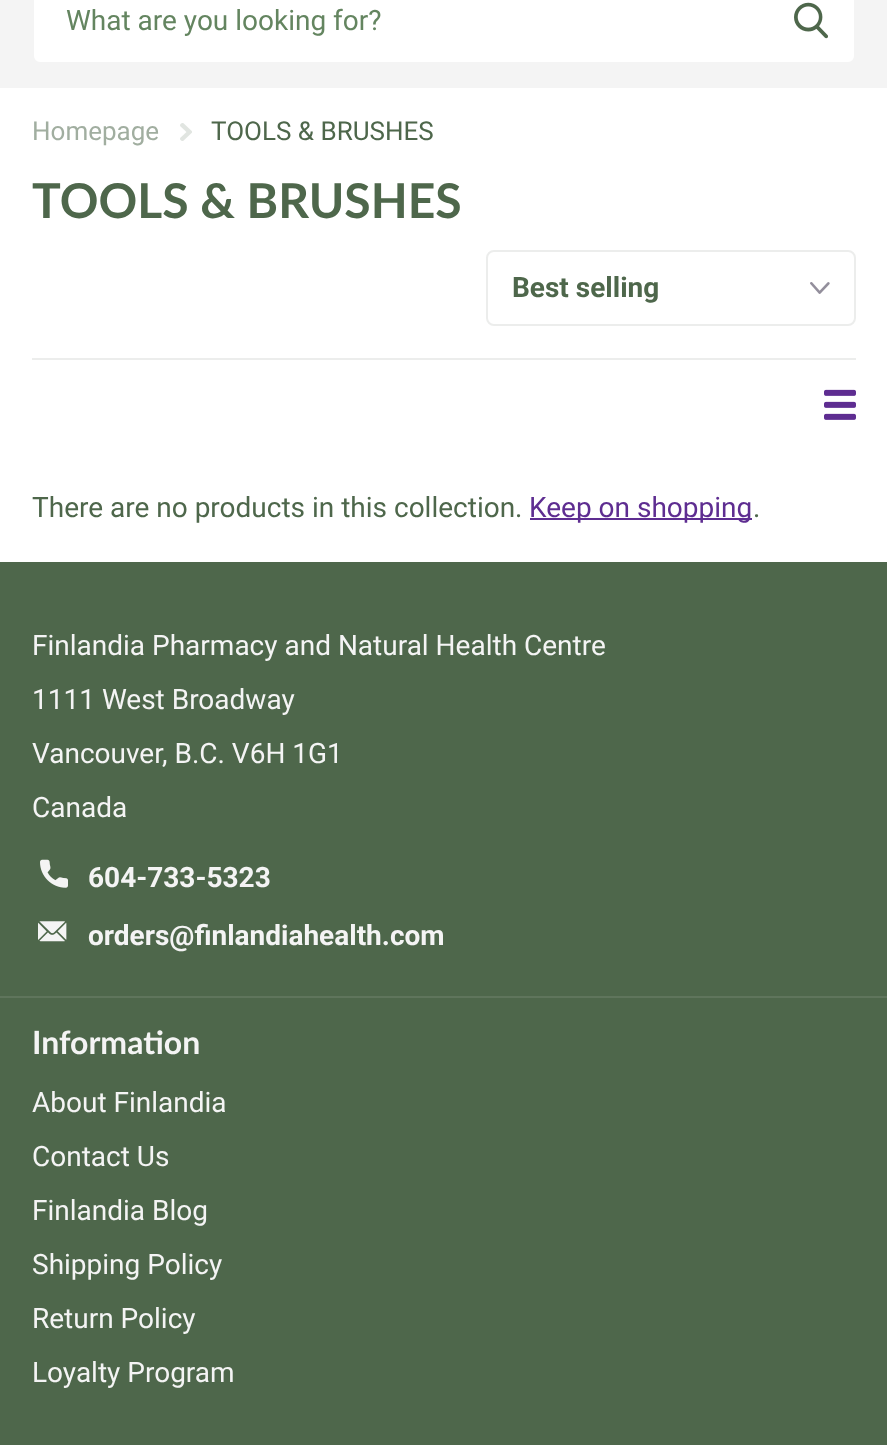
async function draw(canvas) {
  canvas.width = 887
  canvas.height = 1445
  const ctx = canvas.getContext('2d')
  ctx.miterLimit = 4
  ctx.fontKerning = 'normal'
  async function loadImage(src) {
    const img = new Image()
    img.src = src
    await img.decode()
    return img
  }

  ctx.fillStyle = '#fff'
  ctx.fillRect(0, 0, 887, 1445)
  ctx.fillStyle = '#f4f4f4'
  ctx.fillRect(0, 0, 887, 88)
  ctx.fillStyle = '#fff'
  ctx.beginPath()
  ctx.roundRect(33, -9, 822, 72, 7)
  ctx.fill()
  ctx.strokeStyle = '#f4f4f4'
  ctx.lineWidth = 2
  ctx.stroke()
  ctx.font = '28px Roboto'
  ctx.fillStyle = '#648560'
  ctx.fillText('What are you looking for?', 66, 30)
  ctx.drawImage(await loadImage('image0.png'), 794, 2, 34, 37)
  ctx.font = '26px Roboto'
  ctx.fillStyle = '#a1aea0'
  ctx.fillText('Homepage', 32, 140)
  ctx.drawImage(await loadImage('image1.png'), 180, 123, 12, 18)
  ctx.fillStyle = '#4e674b'
  ctx.fillText('TOOLS & BRUSHES', 211, 140)
  ctx.font = 'bold 48px Lato'
  ctx.fillText('TOOLS & BRUSHES', 32, 218)
  ctx.drawImage(await loadImage('image2.png'), 810, 282, 20, 12)
  ctx.beginPath()
  ctx.roundRect(487, 251, 368, 74, 7)
  ctx.strokeStyle = '#ecedec'
  ctx.stroke()
  ctx.font = 'bold 28px Roboto'
  ctx.fillText('Best selling', 512, 297)
  ctx.fillStyle = '#ecedec'
  ctx.fillRect(32, 358, 824, 2)
  ctx.drawImage(await loadImage('image3.png'), 824, 389, 32, 31)
  ctx.font = '28px Roboto'
  ctx.fillStyle = '#4e674b'
  ctx.fillText('There are no products in this collection.', 32, 517)
  ctx.fillStyle = '#5e2d91'
  ctx.fillRect(530, 518, 222, 2)
  ctx.fillText('Keep on shopping', 529, 517)
  ctx.fillStyle = '#4e674b'
  ctx.fillText('.', 753, 517)
  ctx.fillRect(0, 562, 887, 883)
  ctx.fillStyle = '#f4f4f4'
  ctx.fillText('Finlandia Pharmacy and Natural Health Centre', 32, 655)
  ctx.fillText('1111 West Broadway', 32, 709)
  ctx.fillText('Vancouver, B.C. V6H 1G1', 32, 763)
  ctx.fillText('Canada', 32, 817)
  ctx.drawImage(await loadImage('image4.png'), 40, 859, 28, 29)
  ctx.font = 'bold 28px Roboto'
  ctx.fillText('604-733-5323', 88, 887)
  ctx.drawImage(await loadImage('image5.png'), 38, 921, 29, 21)
  ctx.fillText('orders@finlandiahealth.com', 88, 945)
  ctx.fillStyle = '#5f755c'
  ctx.fillRect(0, 996, 887, 2)
  ctx.font = 'bold 32px Lato'
  ctx.fillStyle = '#f4f4f4'
  ctx.fillText('Information', 32, 1054)
  ctx.font = '28px Roboto'
  ctx.fillText('About Finlandia', 32, 1112)
  ctx.fillText('Contact Us', 32, 1166)
  ctx.fillText('Finlandia Blog', 32, 1220)
  ctx.fillText('Shipping Policy', 32, 1274)
  ctx.fillText('Return Policy', 32, 1328)
  ctx.fillText('Loyalty Program', 32, 1382)
}

draw(document.querySelector('canvas'))
